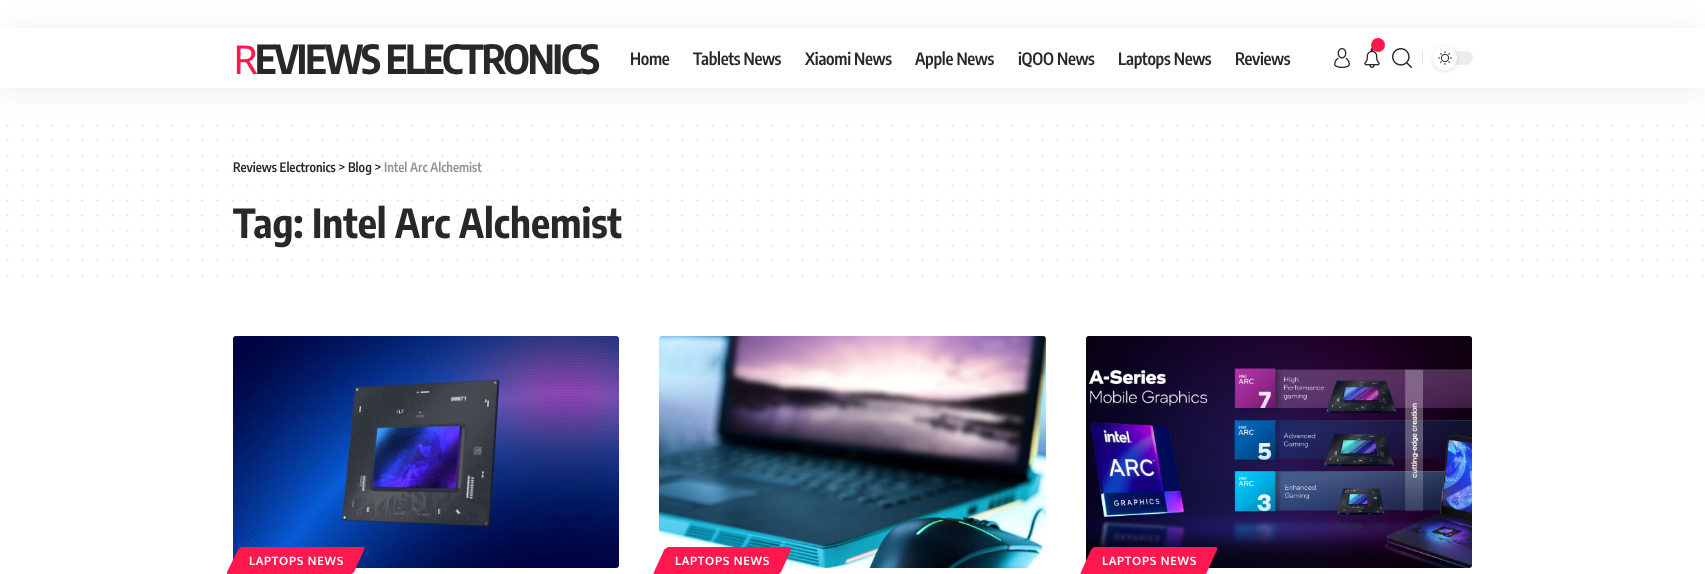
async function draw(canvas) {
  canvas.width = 1705
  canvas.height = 574
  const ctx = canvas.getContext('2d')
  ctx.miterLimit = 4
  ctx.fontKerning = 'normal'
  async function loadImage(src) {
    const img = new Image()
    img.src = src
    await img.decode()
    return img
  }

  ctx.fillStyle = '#fff'
  ctx.fillRect(0, 0, 1705, 574)
  ctx.beginPath()
  ctx.moveTo(7.5, 125.5)
  ctx.lineTo(1702.7, 125.5)
  ctx.strokeStyle = '#dfdfdf'
  ctx.lineWidth = 2
  ctx.lineCap = 'round'
  ctx.setLineDash([0, 15])
  ctx.stroke()
  ctx.save()
  ctx.beginPath()
  ctx.moveTo(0, 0)
  ctx.lineTo(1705, 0)
  ctx.lineTo(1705, 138)
  ctx.lineTo(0, 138)
  ctx.closePath()
  ctx.moveTo(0, 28)
  ctx.lineTo(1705, 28)
  ctx.lineTo(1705, 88)
  ctx.lineTo(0, 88)
  ctx.closePath()
  ctx.clip('evenodd')
  ctx.fillStyle = '#00000012'
  ctx.filter = 'blur(15px)'
  ctx.beginPath()
  ctx.rect(0, 32, 1705, 60)
  ctx.fill()
  ctx.filter = 'none'
  ctx.restore()
  ctx.letterSpacing = '-2px'
  ctx.font = '40px Noto Sans'
  ctx.fillStyle = '#ff184e'
  ctx.fillText('R', 233, 74)
  ctx.font = 'bold 40px Encode Sans Condensed'
  ctx.fillStyle = '#282828'
  ctx.fillText('EVIEWS ELECTRONICS', 255, 74)
  ctx.letterSpacing = '-0.3px'
  ctx.font = '600 17px Encode Sans Condensed'
  ctx.fillText('Home', 630, 65)
  ctx.fillText('Tablets News', 693, 65)
  ctx.fillText('Xiaomi News', 805, 65)
  ctx.fillText('Apple News', 915, 65)
  ctx.fillText('iQOO News', 1018, 65)
  ctx.fillText('Laptops News', 1118, 65)
  ctx.fillText('Reviews', 1235, 65)
  ctx.drawImage(await loadImage('image0.png'), 1334, 48, 16, 20)
  ctx.drawImage(await loadImage('image1.png'), 1364, 48, 16, 20)
  ctx.fillStyle = '#ff184e'
  ctx.beginPath()
  ctx.arc(1378, 45, 7, 0, 2 * Math.PI)
  ctx.fill()
  ctx.drawImage(await loadImage('image2.png'), 1392, 48, 20, 20)
  ctx.fillStyle = '#e4e4e4'
  ctx.fillRect(1422, 51, 1, 14)
  ctx.fillStyle = '#ededed'
  ctx.beginPath()
  ctx.roundRect(1433, 51, 40, 14, 7)
  ctx.fill()
  ctx.fillStyle = '#0000001f'
  ctx.filter = 'blur(2px)'
  ctx.beginPath()
  ctx.roundRect(1433, 47, 24, 24, 12)
  ctx.fill()
  ctx.filter = 'none'
  ctx.fillStyle = '#fff'
  ctx.beginPath()
  ctx.arc(1445, 58, 12, 0, 2 * Math.PI)
  ctx.fill()
  ctx.drawImage(await loadImage('image3.png'), 1438, 51, 14, 14)
  ctx.beginPath()
  ctx.moveTo(7.5, 140.5)
  ctx.lineTo(1702.7, 140.5)
  ctx.stroke()
  ctx.beginPath()
  ctx.moveTo(7.5, 155.5)
  ctx.lineTo(1702.7, 155.5)
  ctx.stroke()
  ctx.letterSpacing = '0px'
  ctx.font = '600 13px Encode Sans Condensed'
  ctx.fillStyle = '#282828'
  ctx.fillText('Reviews Electronics > Blog >', 233, 172)
  ctx.beginPath()
  ctx.moveTo(7.5, 170.5)
  ctx.lineTo(1702.7, 170.5)
  ctx.strokeStyle = '#28282826'
  ctx.stroke()
  ctx.beginPath()
  ctx.moveTo(7.5, 185.5)
  ctx.lineTo(1702.7, 185.5)
  ctx.strokeStyle = '#dfdfdf'
  ctx.stroke()
  ctx.beginPath()
  ctx.moveTo(7.5, 200.5)
  ctx.lineTo(1702.7, 200.5)
  ctx.stroke()
  ctx.font = 'bold 40px Encode Sans Condensed'
  ctx.fillText('Tag: Intel Arc Alchemist', 233, 238)
  ctx.beginPath()
  ctx.moveTo(7.5, 215.5)
  ctx.lineTo(1702.7, 215.5)
  ctx.strokeStyle = '#28282826'
  ctx.stroke()
  ctx.beginPath()
  ctx.moveTo(7.5, 230.5)
  ctx.lineTo(1702.7, 230.5)
  ctx.stroke()
  ctx.beginPath()
  ctx.moveTo(7.5, 245.5)
  ctx.lineTo(1702.7, 245.5)
  ctx.stroke()
  ctx.beginPath()
  ctx.moveTo(7.5, 260.5)
  ctx.lineTo(1702.7, 260.5)
  ctx.strokeStyle = '#dfdfdf'
  ctx.stroke()
  ctx.beginPath()
  ctx.moveTo(7.5, 275.5)
  ctx.lineTo(1702.7, 275.5)
  ctx.stroke()
  ctx.font = '600 13px Encode Sans Condensed'
  ctx.fillStyle = '#939393'
  ctx.fillText('Intel Arc Alchemist', 384, 172)
  ctx.drawImage(await loadImage('image4.png'), 233, 336, 386, 232)
  ctx.fillStyle = '#ff184e'
  ctx.beginPath()
  ctx.moveTo(242, 547)
  ctx.lineTo(363, 547)
  ctx.bezierCurveTo(364, 547, 365, 549, 364, 550)
  ctx.lineTo(354, 572)
  ctx.bezierCurveTo(353, 573, 351, 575, 350, 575)
  ctx.lineTo(229, 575)
  ctx.bezierCurveTo(227, 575, 227, 573, 227, 572)
  ctx.lineTo(238, 550)
  ctx.bezierCurveTo(238, 549, 240, 547, 242, 547)
  ctx.closePath()
  ctx.fill()
  ctx.letterSpacing = '0.75px'
  ctx.font = 'bold 11.5px Oxygen'
  ctx.fillStyle = '#fff'
  ctx.fillText('LAPTOPS NEWS', 249, 565)
  ctx.drawImage(await loadImage('image5.png'), 659, 336, 387, 232)
  ctx.fillStyle = '#ff184e'
  ctx.beginPath()
  ctx.moveTo(669, 547)
  ctx.lineTo(789, 547)
  ctx.bezierCurveTo(791, 547, 792, 549, 791, 550)
  ctx.lineTo(781, 572)
  ctx.bezierCurveTo(780, 573, 778, 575, 776, 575)
  ctx.lineTo(656, 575)
  ctx.bezierCurveTo(654, 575, 653, 573, 654, 572)
  ctx.lineTo(664, 550)
  ctx.bezierCurveTo(665, 549, 667, 547, 669, 547)
  ctx.closePath()
  ctx.fill()
  ctx.fillStyle = '#fff'
  ctx.fillText('LAPTOPS NEWS', 675, 565)
  ctx.drawImage(await loadImage('image6.png'), 1086, 336, 386, 232)
  ctx.fillStyle = '#ff184e'
  ctx.beginPath()
  ctx.moveTo(1095, 547)
  ctx.lineTo(1216, 547)
  ctx.bezierCurveTo(1217, 547, 1218, 549, 1217, 550)
  ctx.lineTo(1207, 572)
  ctx.bezierCurveTo(1207, 573, 1205, 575, 1203, 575)
  ctx.lineTo(1082, 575)
  ctx.bezierCurveTo(1081, 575, 1080, 573, 1081, 572)
  ctx.lineTo(1091, 550)
  ctx.bezierCurveTo(1092, 549, 1093, 547, 1095, 547)
  ctx.closePath()
  ctx.fill()
  ctx.fillStyle = '#fff'
  ctx.fillText('LAPTOPS NEWS', 1102, 565)
}

draw(document.querySelector('canvas'))
